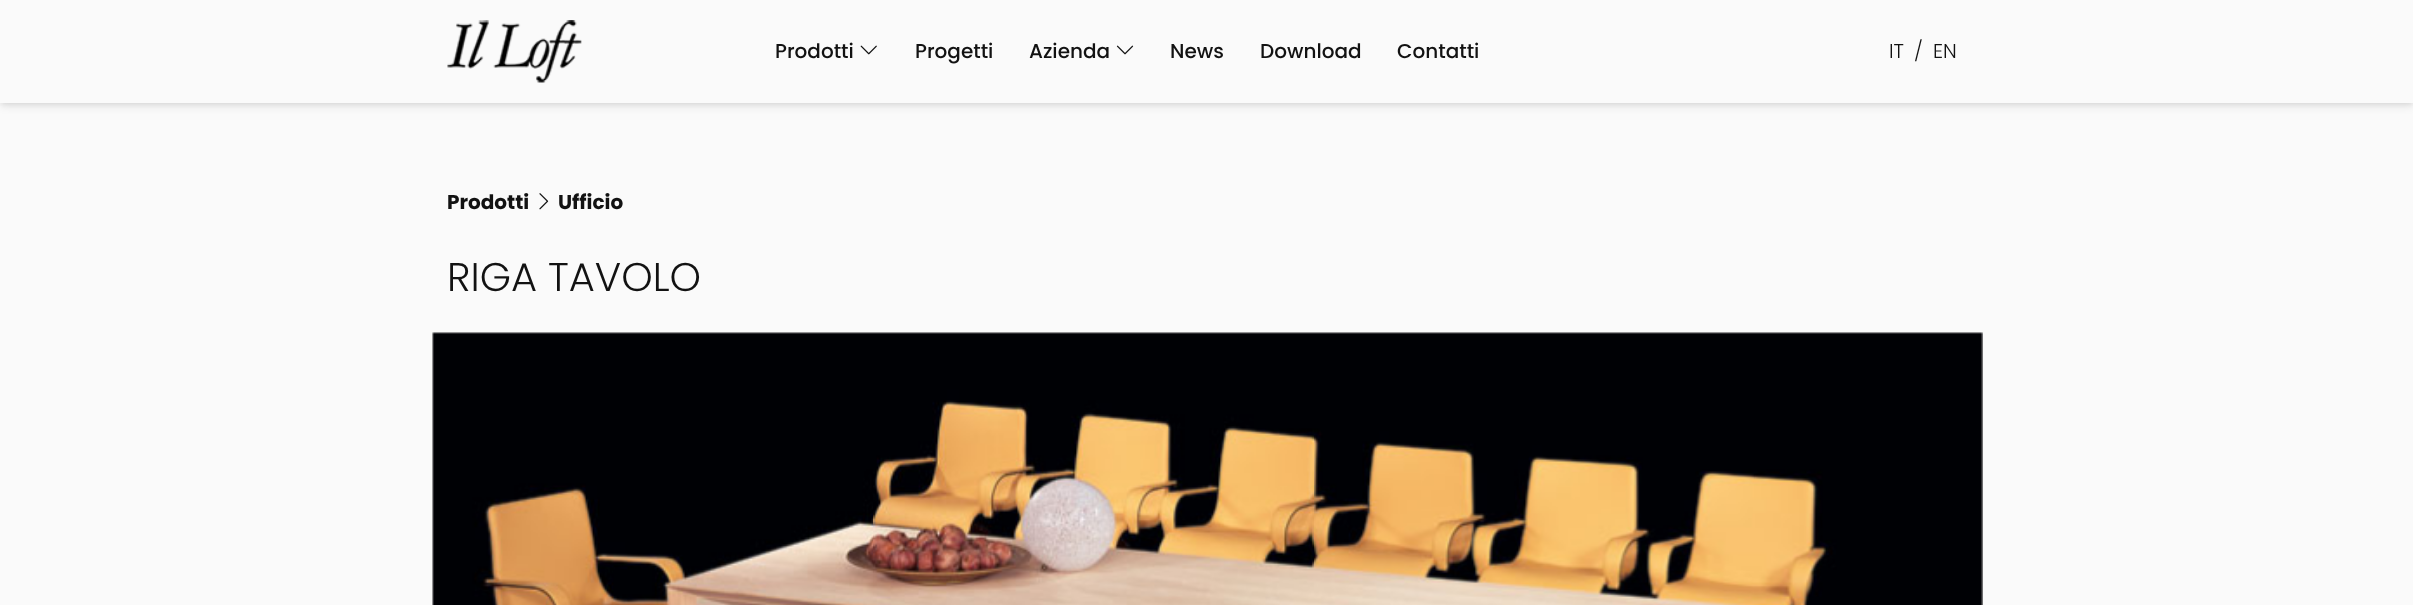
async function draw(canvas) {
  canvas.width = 2413
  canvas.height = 605
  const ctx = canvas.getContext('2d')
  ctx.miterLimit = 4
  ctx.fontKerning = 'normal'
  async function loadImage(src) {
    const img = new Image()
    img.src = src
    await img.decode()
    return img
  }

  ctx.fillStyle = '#fafafa'
  ctx.fillRect(0, 0, 2413, 605)
  ctx.fillStyle = '#0000000f'
  ctx.filter = 'blur(2.5px)'
  ctx.beginPath()
  ctx.rect(1, 4, 2412, 100)
  ctx.fill()
  ctx.filter = 'none'
  ctx.fillStyle = '#0000001a'
  ctx.filter = 'blur(4px)'
  ctx.beginPath()
  ctx.rect(1, 6, 2412, 100)
  ctx.fill()
  ctx.filter = 'none'
  ctx.fillStyle = '#fafafa'
  ctx.fillRect(0, 0, 2413, 103)
  ctx.drawImage(await loadImage('image0.png'), 447, 20, 135, 63)
  ctx.font = '500 20px Poppins'
  ctx.fillStyle = '#121212'
  ctx.fillText('Prodotti', 775, 58)
  ctx.drawImage(await loadImage('image1.png'), 860, 45, 17, 10)
  ctx.fillText('Progetti', 915, 58)
  ctx.fillText('Azienda', 1029, 58)
  ctx.drawImage(await loadImage('image2.png'), 1116, 45, 18, 10)
  ctx.fillText('News', 1170, 58)
  ctx.fillText('Download', 1260, 58)
  ctx.fillText('Contatti', 1397, 58)
  ctx.font = '300 20px Poppins'
  ctx.fillText('IT', 1889, 58)
  ctx.fillText('/', 1914, 58)
  ctx.fillText('EN', 1933, 58)
  ctx.font = 'bold 20px Poppins'
  ctx.fillText('Prodotti', 447, 209)
  ctx.drawImage(await loadImage('image3.png'), 539, 193, 10, 17)
  ctx.fillText('Ufficio', 558, 209)
  ctx.font = '300 40px Poppins'
  ctx.fillText('RIGA TAVOLO', 447, 291)
  ctx.drawImage(await loadImage('image4.png'), 432, 332, 1551, 273)
}

draw(document.querySelector('canvas'))
